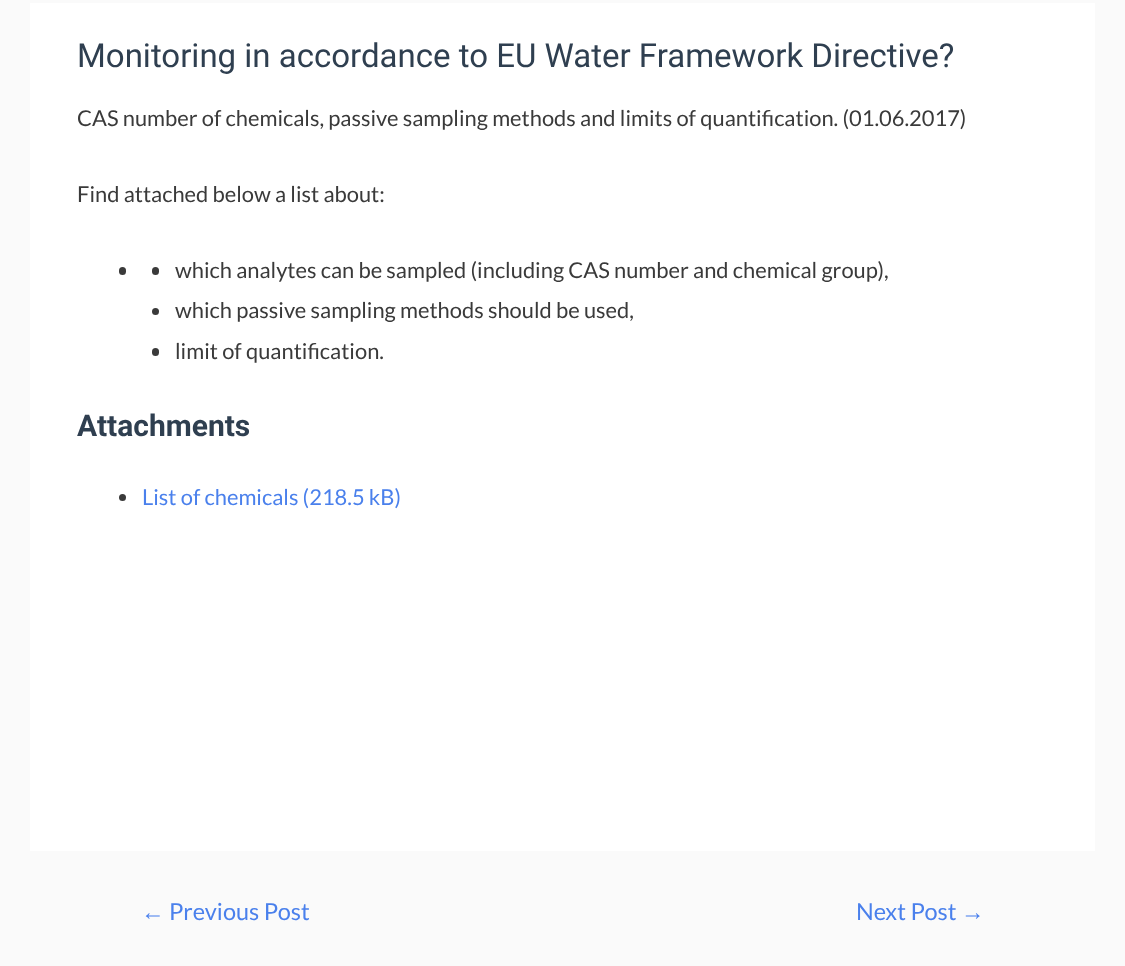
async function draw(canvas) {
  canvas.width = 1125
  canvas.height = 966
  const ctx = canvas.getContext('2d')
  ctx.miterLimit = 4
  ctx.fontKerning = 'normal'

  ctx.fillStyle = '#fafafa'
  ctx.fillRect(0, 0, 1125, 966)
  ctx.fillStyle = '#fff'
  ctx.fillRect(30, 3, 1065, 848)
  ctx.font = '33px Roboto'
  ctx.fillStyle = '#2f3f50'
  ctx.fillText('Monitoring in accordance to EU Water Framework Directive?', 77, 67)
  ctx.font = '21.9px Lato'
  ctx.fillStyle = '#3a3a3a'
  ctx.fillText('CAS number of chemicals, passive sampling methods and limits of quantification. (01.06.2017)', 77, 126)
  ctx.fillText('Find attached below a list about:', 77, 202)
  ctx.beginPath()
  ctx.roundRect(119, 267, 7, 8, 3.5)
  ctx.fill()
  ctx.beginPath()
  ctx.roundRect(152, 267, 7, 8, 3.5)
  ctx.fill()
  ctx.fillText('which analytes can be sampled (including CAS number and chemical group),', 175, 278)
  ctx.beginPath()
  ctx.arc(155.5, 311.5, 3.5, 0, 2 * Math.PI)
  ctx.fill()
  ctx.fillText('which passive sampling methods should be used,', 175, 318)
  ctx.beginPath()
  ctx.roundRect(152, 348, 7, 8, 3.5)
  ctx.fill()
  ctx.fillText('limit of quantification.', 175, 359)
  ctx.font = 'bold 30px Roboto'
  ctx.fillStyle = '#2f3f50'
  ctx.fillText('Attachments', 77, 436)
  ctx.fillStyle = '#3a3a3a'
  ctx.beginPath()
  ctx.arc(122.5, 497.5, 3.5, 0, 2 * Math.PI)
  ctx.fill()
  ctx.font = '21.9px Lato'
  ctx.fillStyle = '#4a80ec'
  ctx.fillText('List of chemicals (218.5 kB)', 142, 505)
  ctx.font = '23.5px Liberation Sans'
  ctx.fillText('←', 141, 920)
  ctx.font = '23.5px Lato'
  ctx.fillText('Previous Post', 169, 920)
  ctx.fillText('Next Post', 856, 920)
  ctx.font = '23.5px Liberation Sans'
  ctx.fillText('→', 961, 920)
}

draw(document.querySelector('canvas'))
